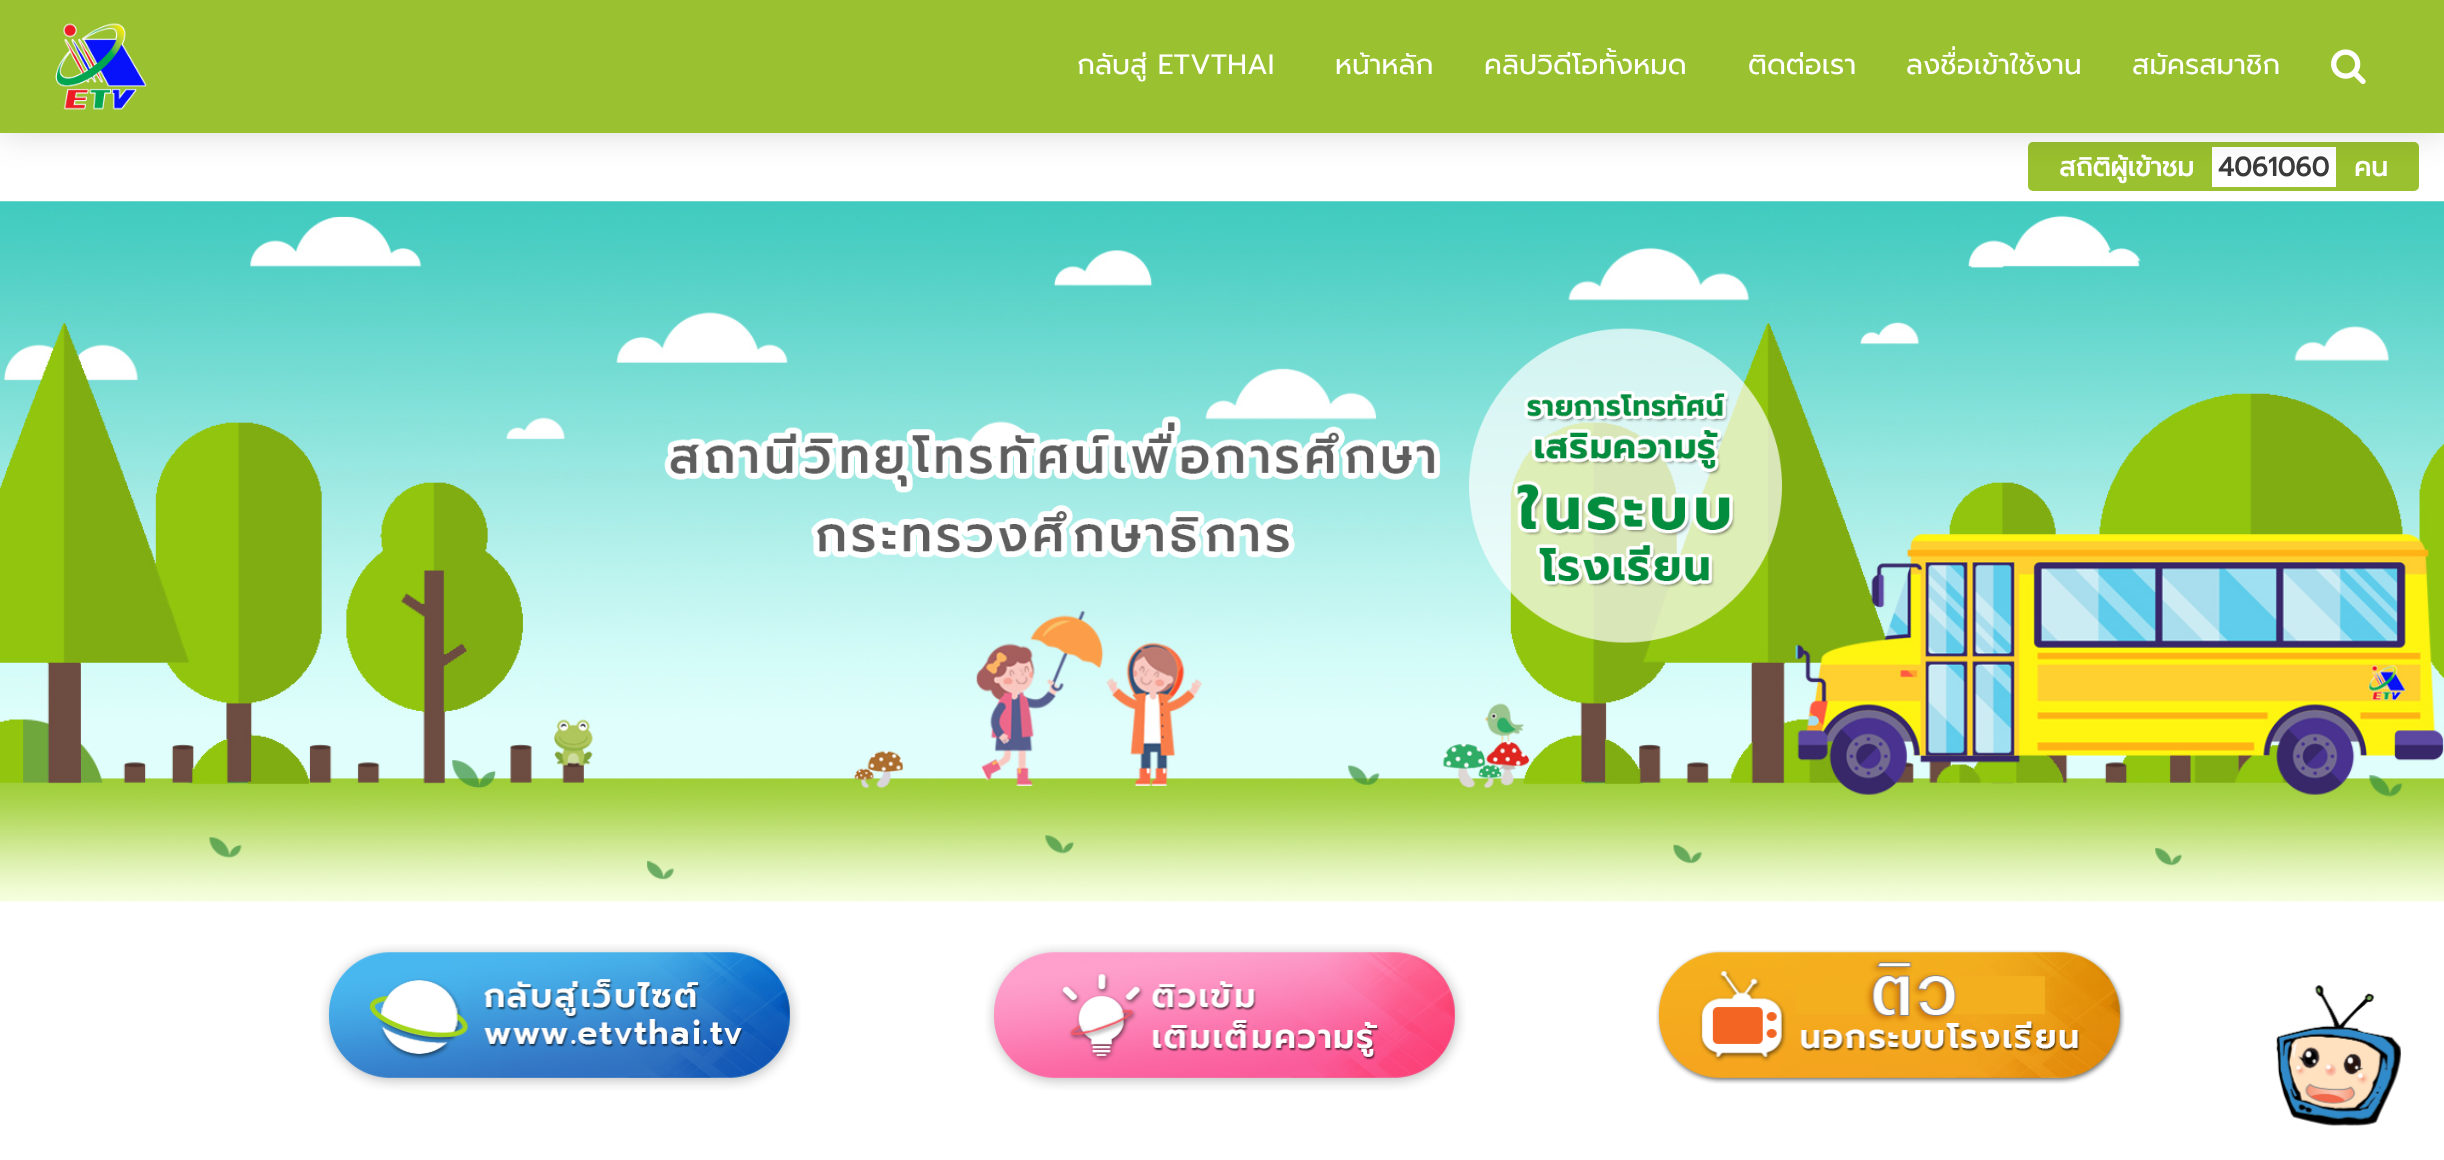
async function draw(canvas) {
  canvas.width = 2444
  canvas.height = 1160
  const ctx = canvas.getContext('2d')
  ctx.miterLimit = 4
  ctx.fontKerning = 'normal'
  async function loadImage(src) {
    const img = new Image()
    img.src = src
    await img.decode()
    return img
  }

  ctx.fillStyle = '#fff'
  ctx.fillRect(0, 0, 2444, 1160)
  ctx.fillStyle = '#9ac12f'
  ctx.beginPath()
  ctx.roundRect(2028, 142, 391, 49, 5)
  ctx.fill()
  ctx.fillStyle = '#fff'
  ctx.fillRect(2212, 147, 124, 40)
  ctx.fillStyle = '#00000026'
  ctx.filter = 'blur(17.5px)'
  ctx.beginPath()
  ctx.rect(0, 0, 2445, 133)
  ctx.fill()
  ctx.filter = 'none'
  ctx.fillStyle = '#9ac12f'
  ctx.fillRect(0, 0, 2444, 133)
  ctx.drawImage(await loadImage('image0.png'), 55, 23, 92, 87)
  ctx.font = '28px Prompt'
  ctx.fillStyle = '#fff'
  ctx.fillText('กลับสู่ ETVTHAI', 1077, 74)
  ctx.fillText('หน้าหลัก', 1335, 74)
  ctx.fillText('คลิปวิดีโอทั้งหมด', 1484, 74)
  ctx.fillText('ติดต่อเรา', 1748, 74)
  ctx.fillText('ลงชื่อเข้าใช้งาน', 1906, 74)
  ctx.fillText('สมัครสมาชิก', 2132, 74)
  ctx.drawImage(await loadImage('image1.png'), 2331, 49, 35, 35)
  ctx.font = 'bold 26.5px Prompt'
  ctx.fillText('สถิติผู้เข้าชม', 2059, 176)
  ctx.fillStyle = '#3a3a3a'
  ctx.fillText('4061060', 2218, 176)
  ctx.fillStyle = '#fff'
  ctx.fillText('คน', 2354, 176)
  ctx.drawImage(await loadImage('image2.png'), 0, 201, 2444, 701)
  ctx.drawImage(await loadImage('image3.png'), 664, 328, 1118, 315)
  ctx.drawImage(await loadImage('image4.png'), 320, 944, 481, 146)
  ctx.drawImage(await loadImage('image5.png'), 985, 944, 481, 146)
  ctx.drawImage(await loadImage('image6.png'), 1656, 950, 469, 134)
  ctx.drawImage(await loadImage('image7.png'), 2276, 985, 125, 141)
}

draw(document.querySelector('canvas'))
